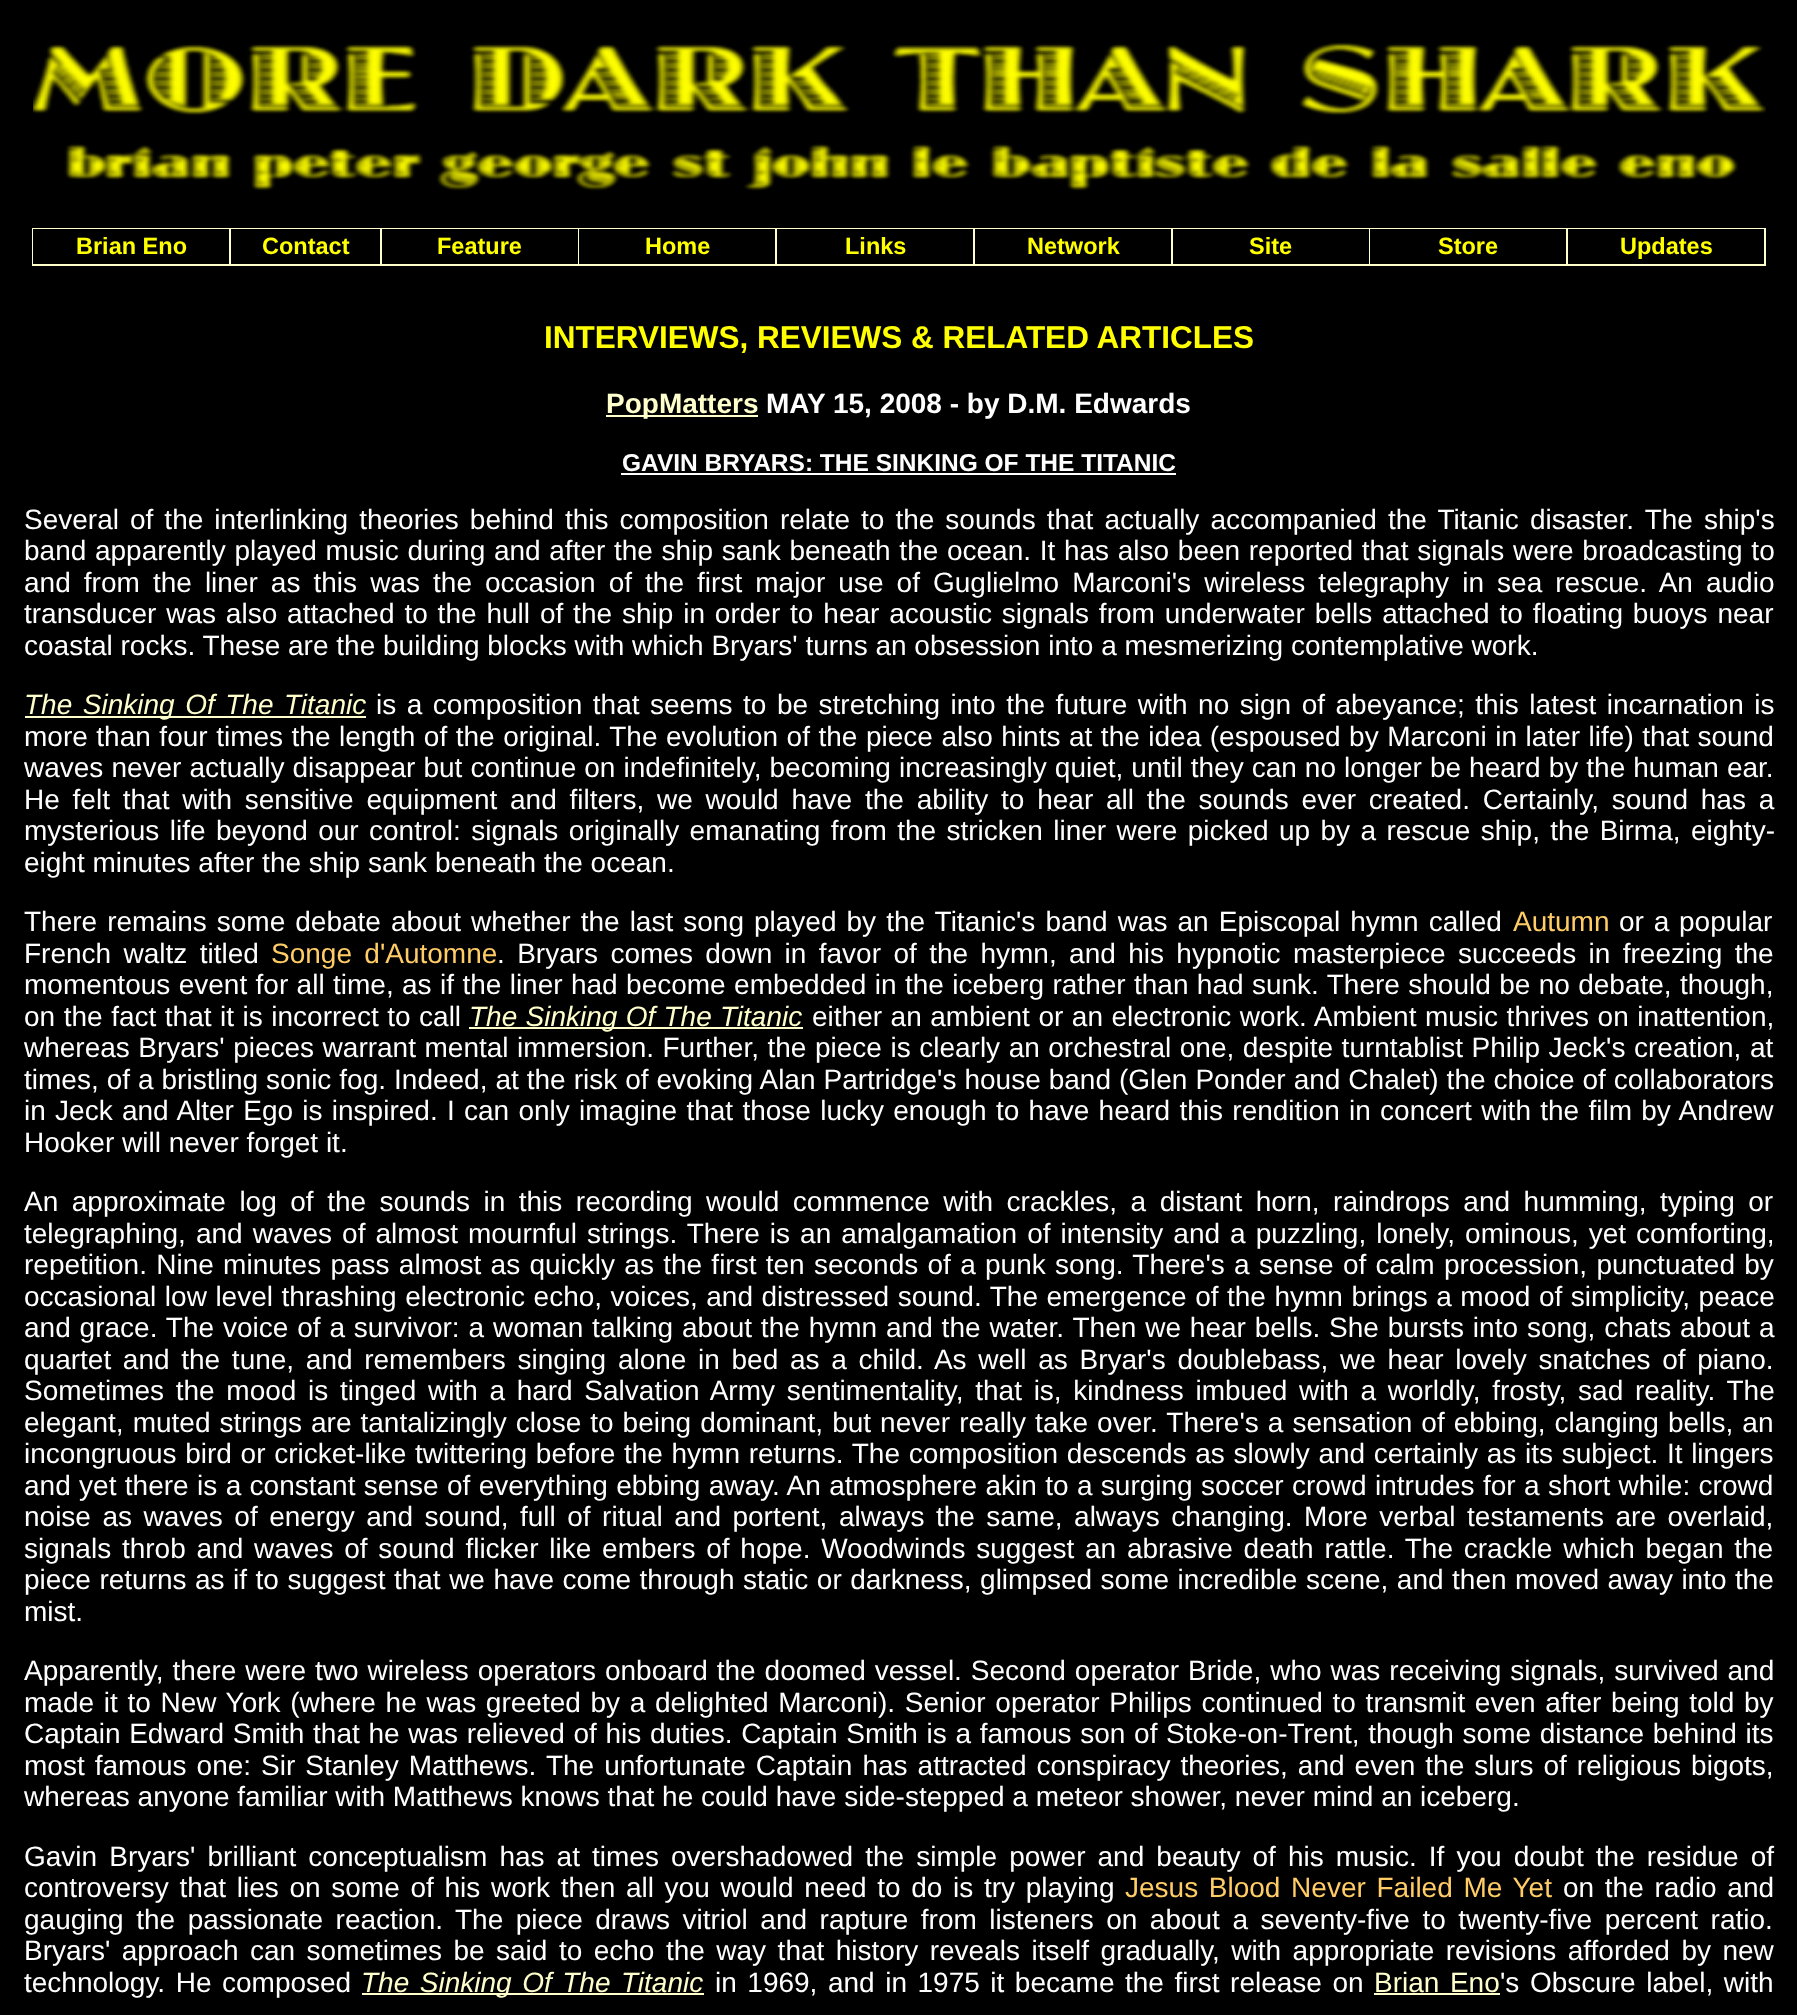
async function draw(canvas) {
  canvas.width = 1797
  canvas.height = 2015
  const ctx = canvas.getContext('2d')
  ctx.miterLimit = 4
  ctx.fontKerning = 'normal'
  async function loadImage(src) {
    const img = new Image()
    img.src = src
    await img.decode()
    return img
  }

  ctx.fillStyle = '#000'
  ctx.fillRect(0, 0, 1797, 2015)
  ctx.fillStyle = '#ffc'
  ctx.fillRect(32, 228, 1734, 38)
  ctx.fillStyle = '#000'
  ctx.fillRect(33, 229, 196, 35)
  ctx.font = 'bold 23.5px Liberation Sans'
  ctx.fillStyle = '#ff0'
  ctx.fillText('Brian Eno', 76, 254)
  ctx.fillStyle = '#000'
  ctx.fillRect(231, 229, 149, 35)
  ctx.fillStyle = '#ff0'
  ctx.fillText('Contact', 262, 254)
  ctx.fillStyle = '#000'
  ctx.fillRect(382, 229, 196, 35)
  ctx.fillStyle = '#ff0'
  ctx.fillText('Feature', 437, 254)
  ctx.fillStyle = '#000'
  ctx.fillRect(579, 229, 196, 35)
  ctx.fillStyle = '#ff0'
  ctx.fillText('Home', 645, 254)
  ctx.fillStyle = '#000'
  ctx.fillRect(777, 229, 196, 35)
  ctx.fillStyle = '#ff0'
  ctx.fillText('Links', 845, 254)
  ctx.fillStyle = '#000'
  ctx.fillRect(975, 229, 196, 35)
  ctx.fillStyle = '#ff0'
  ctx.fillText('Network', 1027, 254)
  ctx.fillStyle = '#000'
  ctx.fillRect(1173, 229, 196, 35)
  ctx.fillStyle = '#ff0'
  ctx.fillText('Site', 1249, 254)
  ctx.fillStyle = '#000'
  ctx.fillRect(1370, 229, 196, 35)
  ctx.fillStyle = '#ff0'
  ctx.fillText('Store', 1438, 254)
  ctx.fillStyle = '#000'
  ctx.fillRect(1568, 229, 196, 35)
  ctx.fillStyle = '#ff0'
  ctx.fillText('Updates', 1620, 254)
  ctx.drawImage(await loadImage('image0.png'), 33, 42, 1733, 149)
  ctx.font = 'bold 31.5px Liberation Sans'
  ctx.fillText('INTERVIEWS, REVIEWS & RELATED ARTICLES', 544, 348)
  ctx.fillStyle = '#ffc'
  ctx.fillRect(606, 415, 152, 2)
  ctx.font = 'bold 28px Liberation Sans'
  ctx.fillText('PopMatters', 606, 413)
  ctx.fillStyle = '#fff'
  ctx.fillText('MAY 15, 2008 - by D.M. Edwards', 766, 413)
  ctx.font = 'bold 24.5px Liberation Sans'
  ctx.fillText('GAVIN BRYARS: THE SINKING OF THE TITANIC', 622, 471)
  ctx.fillRect(621, 473, 555, 2)
  ctx.wordSpacing = '3.25px'
  ctx.font = '28px Liberation Sans'
  ctx.fillText('Several of the interlinking theories behind this composition relate to the sounds that actually accompanied the Titanic disaster. The ship\'s', 24, 529)
  ctx.wordSpacing = '0.9px'
  ctx.fillText('band apparently played music during and after the ship sank beneath the ocean. It has also been reported that signals were broadcasting to', 24, 560)
  ctx.wordSpacing = '5.3px'
  ctx.fillText('and from the liner as this was the occasion of the first major use of Guglielmo Marconi\'s wireless telegraphy in sea rescue. An audio', 24, 592)
  ctx.wordSpacing = '2.1px'
  ctx.fillText('transducer was also attached to the hull of the ship in order to hear acoustic signals from underwater bells attached to floating buoys near', 24, 623)
  ctx.wordSpacing = '0px'
  ctx.fillText('coastal rocks. These are the building blocks with which Bryars\' turns an obsession into a mesmerizing contemplative work.', 24, 655)
  ctx.fillStyle = '#ffc'
  ctx.fillRect(25, 716, 341, 2)
  ctx.wordSpacing = '2.75px'
  ctx.font = 'italic 28px Liberation Sans'
  ctx.fillText('The Sinking Of The Titanic', 24, 714)
  ctx.font = '28px Liberation Sans'
  ctx.fillStyle = '#fff'
  ctx.fillText('is a composition that seems to be stretching into the future with no sign of abeyance; this latest incarnation is', 376, 714)
  ctx.wordSpacing = '0.75px'
  ctx.fillText('more than four times the length of the original. The evolution of the piece also hints at the idea (espoused by Marconi in later life) that sound', 24, 746)
  ctx.wordSpacing = '0.25px'
  ctx.fillText('waves never actually disappear but continue on indefinitely, becoming increasingly quiet, until they can no longer be heard by the human ear.', 24, 777)
  ctx.wordSpacing = '5px'
  ctx.fillText('He felt that with sensitive equipment and filters, we would have the ability to hear all the sounds ever created. Certainly, sound has a', 24, 809)
  ctx.wordSpacing = '2.6px'
  ctx.fillText('mysterious life beyond our control: signals originally emanating from the stricken liner were picked up by a rescue ship, the Birma, eighty-', 24, 840)
  ctx.wordSpacing = '0px'
  ctx.fillText('eight minutes after the ship sank beneath the ocean.', 24, 872)
  ctx.wordSpacing = '2.25px'
  ctx.fillText('There remains some debate about whether the last song played by the Titanic\'s band was an Episcopal hymn called', 24, 931)
  ctx.wordSpacing = '0px'
  ctx.fillStyle = '#fc6'
  ctx.fillText('Autumn', 1513, 931)
  ctx.wordSpacing = '2px'
  ctx.fillStyle = '#fff'
  ctx.fillText('or a popular', 1619, 931)
  ctx.wordSpacing = '4.6px'
  ctx.fillText('French waltz titled', 24, 963)
  ctx.fillStyle = '#fc6'
  ctx.fillText('Songe d\'Automne', 271, 963)
  ctx.fillStyle = '#fff'
  ctx.fillText('. Bryars comes down in favor of the hymn, and his hypnotic masterpiece succeeds in freezing the', 497, 963)
  ctx.wordSpacing = '0.6px'
  ctx.fillText('momentous event for all time, as if the liner had become embedded in the iceberg rather than had sunk. There should be no debate, though,', 24, 994)
  ctx.wordSpacing = '0.75px'
  ctx.fillText('on the fact that it is incorrect to call', 24, 1026)
  ctx.fillStyle = '#ffc'
  ctx.fillRect(469, 1027, 334, 2)
  ctx.wordSpacing = '0.5px'
  ctx.font = 'italic 28px Liberation Sans'
  ctx.fillText('The Sinking Of The Titanic', 469, 1026)
  ctx.wordSpacing = '0.75px'
  ctx.font = '28px Liberation Sans'
  ctx.fillStyle = '#fff'
  ctx.fillText('either an ambient or an electronic work. Ambient music thrives on inattention,', 812, 1026)
  ctx.fillText('whereas Bryars\' pieces warrant mental immersion. Further, the piece is clearly an orchestral one, despite turntablist Philip Jeck\'s creation, at', 24, 1057)
  ctx.wordSpacing = '0.2px'
  ctx.fillText('times, of a bristling sonic fog. Indeed, at the risk of evoking Alan Partridge\'s house band (Glen Ponder and Chalet) the choice of collaborators', 24, 1089)
  ctx.wordSpacing = '1.5px'
  ctx.fillText('in Jeck and Alter Ego is inspired. I can only imagine that those lucky enough to have heard this rendition in concert with the film by Andrew', 24, 1120)
  ctx.wordSpacing = '0px'
  ctx.fillText('Hooker will never forget it.', 24, 1152)
  ctx.wordSpacing = '5.75px'
  ctx.fillText('An approximate log of the sounds in this recording would commence with crackles, a distant horn, raindrops and humming, typing or', 24, 1211)
  ctx.wordSpacing = '2.25px'
  ctx.fillText('telegraphing, and waves of almost mournful strings. There is an amalgamation of intensity and a puzzling, lonely, ominous, yet comforting,', 24, 1243)
  ctx.wordSpacing = '1.5px'
  ctx.fillText('repetition. Nine minutes pass almost as quickly as the first ten seconds of a punk song. There\'s a sense of calm procession, punctuated by', 24, 1274)
  ctx.wordSpacing = '0.75px'
  ctx.fillText('occasional low level thrashing electronic echo, voices, and distressed sound. The emergence of the hymn brings a mood of simplicity, peace', 24, 1306)
  ctx.wordSpacing = '1.1px'
  ctx.fillText('and grace. The voice of a survivor: a woman talking about the hymn and the water. Then we hear bells. She bursts into song, chats about a', 24, 1337)
  ctx.wordSpacing = '3.9px'
  ctx.fillText('quartet and the tune, and remembers singing alone in bed as a child. As well as Bryar\'s doublebass, we hear lovely snatches of piano.', 24, 1369)
  ctx.fillText('Sometimes the mood is tinged with a hard Salvation Army sentimentality, that is, kindness imbued with a worldly, frosty, sad reality. The', 24, 1400)
  ctx.wordSpacing = '1.25px'
  ctx.fillText('elegant, muted strings are tantalizingly close to being dominant, but never really take over. There\'s a sensation of ebbing, clanging bells, an', 24, 1432)
  ctx.wordSpacing = '0.9px'
  ctx.fillText('incongruous bird or cricket-like twittering before the hymn returns. The composition descends as slowly and certainly as its subject. It lingers', 24, 1463)
  ctx.wordSpacing = '0.6px'
  ctx.fillText('and yet there is a constant sense of everything ebbing away. An atmosphere akin to a surging soccer crowd intrudes for a short while: crowd', 24, 1495)
  ctx.wordSpacing = '3.7px'
  ctx.fillText('noise as waves of energy and sound, full of ritual and portent, always the same, always changing. More verbal testaments are overlaid,', 24, 1526)
  ctx.wordSpacing = '3px'
  ctx.fillText('signals throb and waves of sound flicker like embers of hope. Woodwinds suggest an abrasive death rattle. The crackle which began the', 24, 1558)
  ctx.wordSpacing = '0.7px'
  ctx.fillText('piece returns as if to suggest that we have come through static or darkness, glimpsed some incredible scene, and then moved away into the', 24, 1589)
  ctx.wordSpacing = '0px'
  ctx.fillText('mist.', 24, 1621)
  ctx.wordSpacing = '1.2px'
  ctx.fillText('Apparently, there were two wireless operators onboard the doomed vessel. Second operator Bride, who was receiving signals, survived and', 24, 1680)
  ctx.wordSpacing = '1.9px'
  ctx.fillText('made it to New York (where he was greeted by a delighted Marconi). Senior operator Philips continued to transmit even after being told by', 24, 1712)
  ctx.wordSpacing = '0.9px'
  ctx.fillText('Captain Edward Smith that he was relieved of his duties. Captain Smith is a famous son of Stoke-on-Trent, though some distance behind its', 24, 1743)
  ctx.wordSpacing = '2.25px'
  ctx.fillText('most famous one: Sir Stanley Matthews. The unfortunate Captain has attracted conspiracy theories, and even the slurs of religious bigots,', 24, 1775)
  ctx.wordSpacing = '0px'
  ctx.fillText('whereas anyone familiar with Matthews knows that he could have side-stepped a meteor shower, never mind an iceberg.', 24, 1806)
  ctx.wordSpacing = '4.3px'
  ctx.fillText('Gavin Bryars\' brilliant conceptualism has at times overshadowed the simple power and beauty of his music. If you doubt the residue of', 24, 1866)
  ctx.wordSpacing = '2.9px'
  ctx.fillText('controversy that lies on some of his work then all you would need to do is try playing', 24, 1897)
  ctx.fillStyle = '#fc6'
  ctx.fillText('Jesus Blood Never Failed Me Yet', 1125, 1897)
  ctx.fillStyle = '#fff'
  ctx.fillText('on the radio and', 1563, 1897)
  ctx.wordSpacing = '4.75px'
  ctx.fillText('gauging the passionate reaction. The piece draws vitriol and rapture from listeners on about a seventy-five to twenty-five percent ratio.', 24, 1929)
  ctx.wordSpacing = '3.7px'
  ctx.fillText('Bryars\' approach can sometimes be said to echo the way that history reveals itself gradually, with appropriate revisions afforded by new', 24, 1960)
  ctx.wordSpacing = '2.75px'
  ctx.fillText('technology. He composed', 24, 1992)
  ctx.fillStyle = '#ffc'
  ctx.fillRect(362, 1993, 342, 2)
  ctx.font = 'italic 28px Liberation Sans'
  ctx.fillText('The Sinking Of The Titanic', 361, 1992)
  ctx.font = '28px Liberation Sans'
  ctx.fillStyle = '#fff'
  ctx.fillText('in 1969, and in 1975 it became the first release on', 715, 1992)
  ctx.fillStyle = '#ffc'
  ctx.fillText('Brian Eno', 1374, 1992)
  ctx.fillRect(1374, 1993, 126, 2)
  ctx.fillStyle = '#fff'
  ctx.fillText('\'s Obscure label, with', 1500, 1992)
}

draw(document.querySelector('canvas'))
